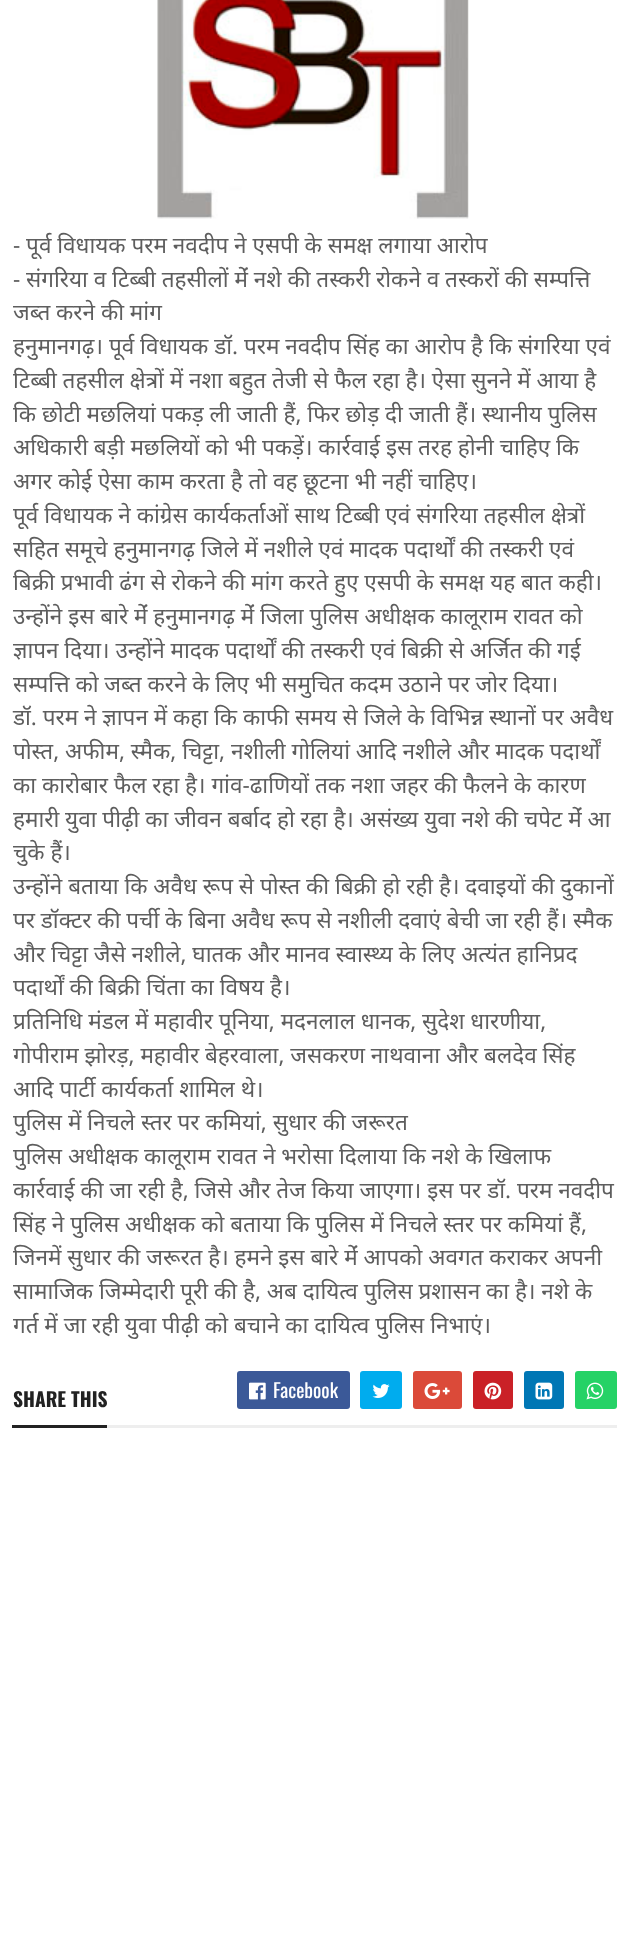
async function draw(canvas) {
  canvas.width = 628
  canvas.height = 1952
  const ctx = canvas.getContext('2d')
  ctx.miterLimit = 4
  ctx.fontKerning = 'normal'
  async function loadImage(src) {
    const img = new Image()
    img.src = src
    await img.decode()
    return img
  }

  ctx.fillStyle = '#fff'
  ctx.fillRect(0, 0, 628, 1952)
  ctx.drawImage(await loadImage('image0.png'), 157, 0, 312, 219)
  ctx.font = '22.5px Noto Sans'
  ctx.fillStyle = '#5e5e5e'
  ctx.fillText('- पूर्व विधायक परम नवदीप ने एसपी के समक्ष लगाया आरोप', 13, 253)
  ctx.fillText('- संगरिया व टिब्बी तहसीलों मेंं नशे की तस्करी रोकने व तस्करों की सम्पत्ति', 13, 287)
  ctx.fillText('जब्त करने की मांग', 13, 320)
  ctx.fillText('हनुमानगढ़। पूर्व विधायक डॉ. परम नवदीप सिंह का आरोप है कि संगरिया एवं', 13, 354)
  ctx.fillText('टिब्बी तहसील क्षेत्रों में नशा बहुत तेजी से फैल रहा है। ऐसा सुनने में आया है', 13, 388)
  ctx.fillText('कि छोटी मछलियां पकड़ ली जाती हैं, फिर छोड़ दी जाती हैं। स्थानीय पुलिस', 13, 422)
  ctx.fillText('अधिकारी बड़ी मछलियों को भी पकड़ें। कार्रवाई इस तरह होनी चाहिए कि', 13, 455)
  ctx.fillText('अगर कोई ऐसा काम करता है तो वह छूटना भी नहीं चाहिए।', 13, 489)
  ctx.save()
  ctx.beginPath()
  ctx.rect(12, 0, 605, 1341)
  ctx.clip()
  ctx.fillText('पूर्व विधायक ने कांग्रेस कार्यकर्ताओं साथ टिब्बी एवं संगरिया तहसील क्षेत्रों', 13, 523)
  ctx.restore()
  ctx.fillText('सहित समूचे हनुमानगढ़ जिले में नशीले एवं मादक पदार्थों की तस्करी एवं', 13, 557)
  ctx.fillText('बिक्री प्रभावी ढंग से रोकने की मांग करते हुए एसपी के समक्ष यह बात कही।', 13, 590)
  ctx.fillText('उन्होंने इस बारे मेंं हनुमानगढ़ मेंं जिला पुलिस अधीक्षक कालूराम रावत को', 13, 624)
  ctx.fillText('ज्ञापन दिया। उन्होंने मादक पदार्थों की तस्करी एवं बिक्री से अर्जित की गई', 13, 658)
  ctx.fillText('सम्पत्ति को जब्त करने के लिए भी समुचित कदम उठाने पर जोर दिया।', 13, 692)
  ctx.save()
  ctx.beginPath()
  ctx.rect(12, 0, 605, 1341)
  ctx.clip()
  ctx.fillText('डॉ. परम ने ज्ञापन में कहा कि काफी समय से जिले के विभिन्न स्थानों पर अवैध', 13, 725)
  ctx.fillText('पोस्त, अफीम, स्मैक, चिट्टा, नशीली गोलियां आदि नशीले और मादक पदार्थों', 13, 759)
  ctx.restore()
  ctx.fillText('का कारोबार फैल रहा है। गांव-ढाणियों तक नशा जहर की फैलने के कारण', 13, 793)
  ctx.fillText('हमारी युवा पीढ़ी का जीवन बर्बाद हो रहा है। असंख्य युवा नशे की चपेट मेंं आ', 13, 827)
  ctx.save()
  ctx.beginPath()
  ctx.rect(12, 0, 605, 1341)
  ctx.clip()
  ctx.fillText('चुके हैं।', 13, 860)
  ctx.restore()
  ctx.fillText('उन्होंने बताया कि अवैध रूप से पोस्त की बिक्री हो रही है। दवाइयों की दुकानों', 13, 894)
  ctx.fillText('पर डॉक्टर की पर्ची के बिना अवैध रूप से नशीली दवाएं बेची जा रही हैं। स्मैक', 13, 928)
  ctx.fillText('और चिट्टा जैसे नशीले, घातक और मानव स्वास्थ्य के लिए अत्यंत हानिप्रद', 13, 962)
  ctx.fillText('पदार्थों की बिक्री चिंता का विषय है।', 13, 995)
  ctx.fillText('प्रतिनिधि मंडल में महावीर पूनिया, मदनलाल धानक, सुदेश धारणीया,', 13, 1029)
  ctx.save()
  ctx.beginPath()
  ctx.rect(12, 0, 605, 1341)
  ctx.clip()
  ctx.fillText('गोपीराम झोरड़, महावीर बेहरवाला, जसकरण नाथवाना और बलदेव सिंह', 13, 1063)
  ctx.restore()
  ctx.fillText('आदि पार्टी कार्यकर्ता शामिल थे।', 13, 1097)
  ctx.save()
  ctx.beginPath()
  ctx.rect(12, 0, 605, 1341)
  ctx.clip()
  ctx.fillText('पुलिस में निचले स्तर पर कमियां, सुधार की जरूरत', 13, 1130)
  ctx.fillText('पुलिस अधीक्षक कालूराम रावत ने भरोसा दिलाया कि नशे के खिलाफ', 13, 1164)
  ctx.restore()
  ctx.fillText('कार्रवाई की जा रही है, जिसे और तेज किया जाएगा। इस पर डॉ. परम नवदीप', 13, 1198)
  ctx.fillText('सिंह ने पुलिस अधीक्षक को बताया कि पुलिस में निचले स्तर पर कमियां हैं,', 13, 1232)
  ctx.fillText('जिनमें सुधार की जरूरत है। हमने इस बारे मेंं आपको अवगत कराकर अपनी', 13, 1265)
  ctx.fillText('सामाजिक जिम्मेदारी पूरी की है, अब दायित्व पुलिस प्रशासन का है। नशे के', 13, 1299)
  ctx.fillText('गर्त में जा रही युवा पीढ़ी को बचाने का दायित्व पुलिस निभाएं।', 13, 1333)
  ctx.fillStyle = '#eee'
  ctx.fillRect(107, 1425, 510, 3)
  ctx.fillStyle = '#222'
  ctx.fillRect(12, 1425, 95, 3)
  ctx.font = 'bold 19.5px Oswald'
  ctx.fillText('SHARE THIS', 13, 1407)
  ctx.fillStyle = '#3b5998'
  ctx.beginPath()
  ctx.roundRect(237, 1371, 113, 38, 3)
  ctx.fill()
  ctx.drawImage(await loadImage('image1.png'), 249, 1382, 17, 18)
  ctx.font = '19.5px Oswald'
  ctx.fillStyle = '#fff'
  ctx.fillText('Facebook', 273, 1398)
  ctx.fillStyle = '#00acee'
  ctx.beginPath()
  ctx.roundRect(360, 1371, 42, 38, 3)
  ctx.fill()
  ctx.drawImage(await loadImage('image2.png'), 372, 1384, 18, 14)
  ctx.fillStyle = '#db4a39'
  ctx.beginPath()
  ctx.roundRect(413, 1371, 49, 38, 3)
  ctx.fill()
  ctx.drawImage(await loadImage('image3.png'), 424, 1383, 26, 16)
  ctx.fillStyle = '#ca2127'
  ctx.beginPath()
  ctx.roundRect(473, 1371, 40, 38, 3)
  ctx.fill()
  ctx.drawImage(await loadImage('image4.png'), 484, 1382, 18, 18)
  ctx.fillStyle = '#0077b5'
  ctx.beginPath()
  ctx.roundRect(524, 1371, 40, 38, 3)
  ctx.fill()
  ctx.drawImage(await loadImage('image5.png'), 535, 1382, 18, 18)
  ctx.fillStyle = '#25d266'
  ctx.beginPath()
  ctx.roundRect(575, 1371, 42, 38, 3)
  ctx.fill()
  ctx.drawImage(await loadImage('image6.png'), 586, 1382, 18, 18)
}

draw(document.querySelector('canvas'))
